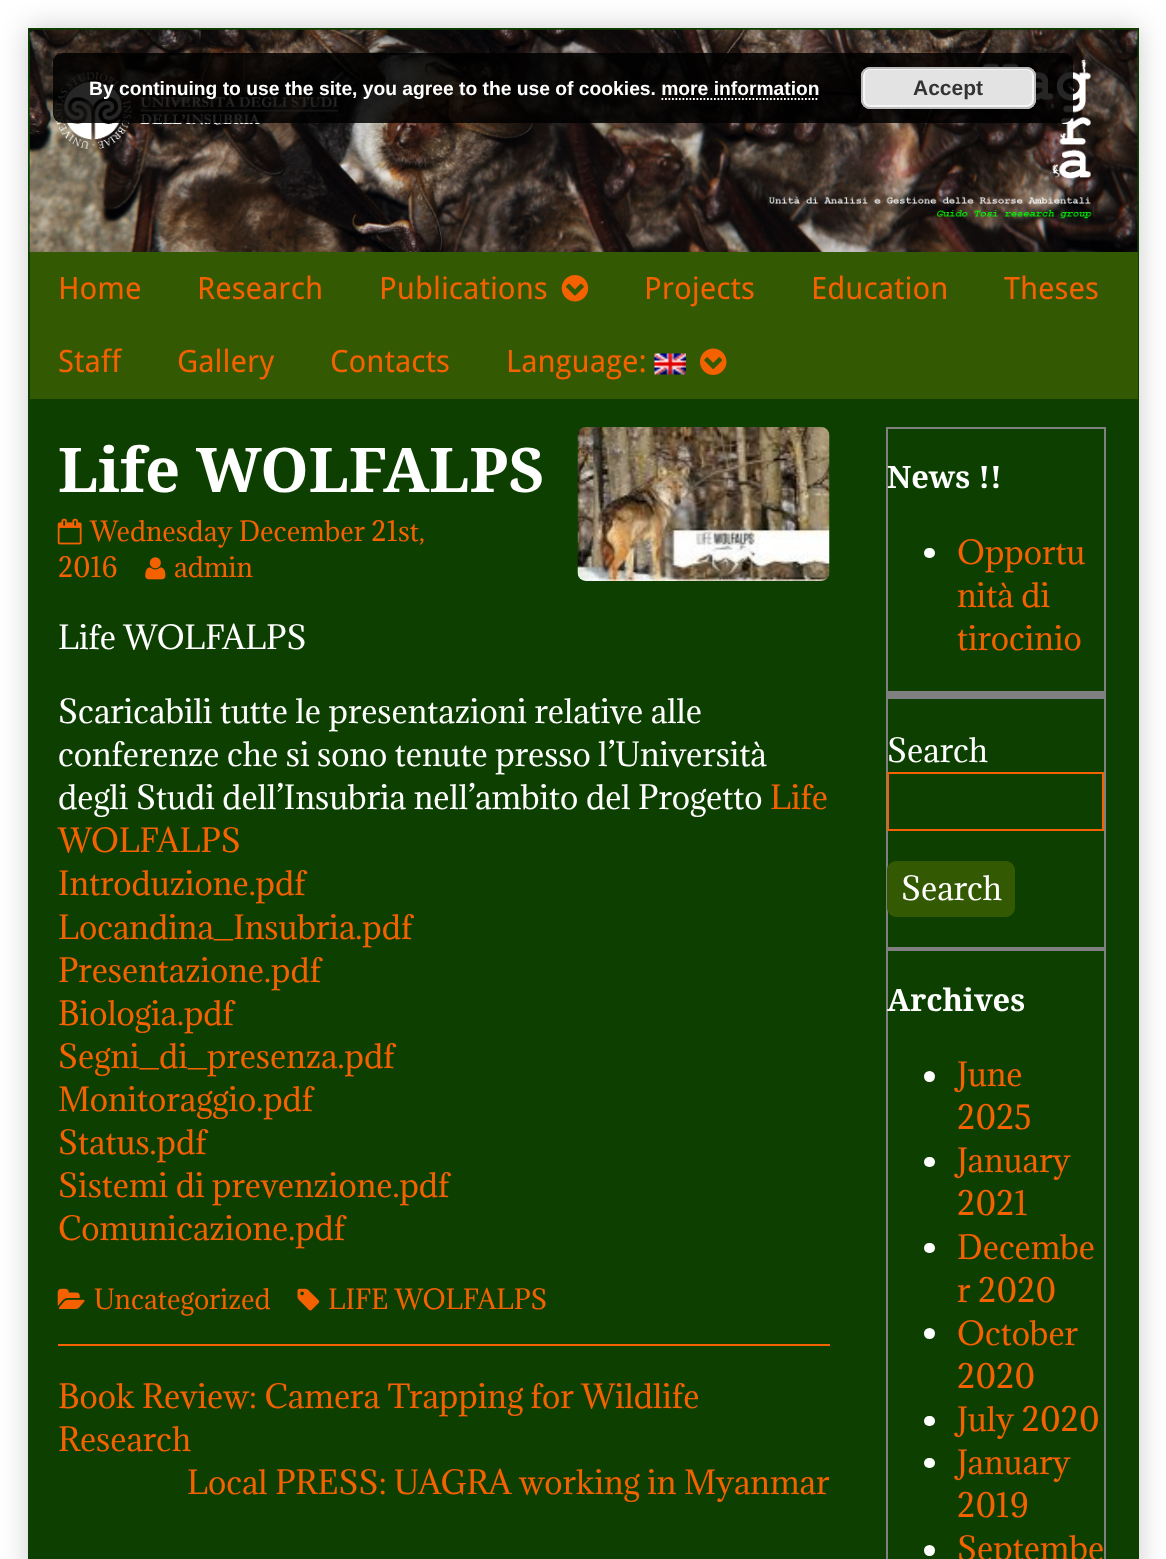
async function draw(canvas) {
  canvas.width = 1166
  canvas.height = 1559
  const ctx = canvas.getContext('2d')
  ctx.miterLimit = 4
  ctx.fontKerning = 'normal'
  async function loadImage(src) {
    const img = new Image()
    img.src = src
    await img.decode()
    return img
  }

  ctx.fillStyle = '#fff'
  ctx.fillRect(0, 0, 1166, 1559)
  ctx.fillStyle = '#00000033'
  ctx.filter = 'blur(14px)'
  ctx.beginPath()
  ctx.rect(28, 28, 1111, 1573)
  ctx.fill()
  ctx.filter = 'none'
  ctx.fillStyle = '#0d3f00'
  ctx.fillRect(28, 28, 1111, 1531)
  ctx.drawImage(await loadImage('image0.png'), 29, 29, 1109, 223)
  ctx.fillStyle = '#000000d9'
  ctx.beginPath()
  ctx.roundRect(53, 53, 1020, 70, 9)
  ctx.fill()
  ctx.font = 'bold 19.25px Liberation Sans'
  ctx.fillStyle = '#fff'
  ctx.fillText('By continuing to use the site, you agree to the use of cookies. more information', 89, 95)
  ctx.fillStyle = '#e3e3e3'
  ctx.beginPath()
  ctx.roundRect(861, 67, 175, 42, 9)
  ctx.fill()
  ctx.beginPath()
  ctx.roundRect(864, 69, 169, 37, 6)
  ctx.strokeStyle = '#f6f6f6'
  ctx.lineWidth = 2
  ctx.stroke()
  ctx.beginPath()
  ctx.roundRect(862, 68, 173, 40, 8)
  ctx.strokeStyle = '#bbb'
  ctx.stroke()
  ctx.font = 'bold 21px Liberation Sans'
  ctx.fillStyle = '#333'
  ctx.fillText('Accept', 913, 95)
  ctx.beginPath()
  ctx.moveTo(661.5, 99)
  ctx.lineTo(819, 99)
  ctx.strokeStyle = '#fff'
  ctx.lineWidth = 1.8
  ctx.setLineDash([1.75, 1.75])
  ctx.stroke()
  ctx.fillStyle = '#345903'
  ctx.fillRect(30, 252, 1108, 147)
  ctx.font = '30.8px Droid Sans'
  ctx.fillStyle = '#f46100'
  ctx.fillText('Home', 58, 299)
  ctx.fillText('Research', 197, 299)
  ctx.fillText('Publications', 379, 299)
  ctx.drawImage(await loadImage('image1.png'), 561, 275, 28, 27)
  ctx.fillText('Projects', 644, 299)
  ctx.fillText('Education', 811, 299)
  ctx.fillText('Theses', 1004, 299)
  ctx.fillText('Staff', 58, 372)
  ctx.fillText('Gallery', 177, 372)
  ctx.fillText('Contacts', 330, 372)
  ctx.fillText('Language:', 506, 372)
  ctx.drawImage(await loadImage('image2.png'), 654, 353, 32, 22)
  ctx.drawImage(await loadImage('image3.png'), 700, 348, 27, 27)
  ctx.font = 'bold 61.5px Droid Serif'
  ctx.fillStyle = '#fff'
  ctx.fillText('Life WOLFALPS', 58, 492)
  ctx.drawImage(await loadImage('image4.png'), 57, 518, 25, 27)
  ctx.font = '25.7px Adamina'
  ctx.fillStyle = '#f46100'
  ctx.fillText('Wednesday December 21st,', 90, 541)
  ctx.fillText('2016', 58, 577)
  ctx.drawImage(await loadImage('image5.png'), 145, 557, 21, 23)
  ctx.fillText('admin', 174, 577)
  ctx.drawImage(await loadImage('image6.png'), 577, 427, 253, 154)
  ctx.font = '30.8px Adamina'
  ctx.fillStyle = '#fff'
  ctx.fillText('Life WOLFALPS', 58, 649)
  ctx.fillText('Scaricabili tutte le presentazioni relative alle', 58, 723)
  ctx.fillText('conferenze che si sono tenute presso l’Università', 58, 766)
  ctx.fillText('degli Studi dell’Insubria nell’ambito del Progetto', 58, 809)
  ctx.fillStyle = '#f46100'
  ctx.fillText('Life', 770, 809)
  ctx.fillText('WOLFALPS', 58, 852)
  ctx.fillText('Introduzione.pdf', 58, 895)
  ctx.fillText('Locandina_Insubria.pdf', 58, 939)
  ctx.fillText('Presentazione.pdf', 58, 982)
  ctx.fillText('Biologia.pdf', 58, 1025)
  ctx.fillText('Segni_di_presenza.pdf', 58, 1068)
  ctx.fillText('Monitoraggio.pdf', 58, 1111)
  ctx.fillText('Status.pdf', 58, 1154)
  ctx.fillText('Sistemi di prevenzione.pdf', 58, 1197)
  ctx.fillText('Comunicazione.pdf', 58, 1240)
  ctx.fillRect(58, 1344, 772, 2)
  ctx.drawImage(await loadImage('image7.png'), 57, 1288, 28, 21)
  ctx.font = '25.7px Adamina'
  ctx.fillText('Uncategorized', 94, 1309)
  ctx.drawImage(await loadImage('image8.png'), 297, 1288, 23, 23)
  ctx.fillText('LIFE WOLFALPS', 328, 1309)
  ctx.font = '30.8px Adamina'
  ctx.fillText('Book Review: Camera Trapping for Wildlife', 58, 1408)
  ctx.fillText('Research', 58, 1451)
  ctx.fillText('Local PRESS: UAGRA working in Myanmar', 187, 1494)
  ctx.strokeStyle = '#808080'
  ctx.lineWidth = 2
  ctx.setLineDash([])
  ctx.strokeRect(887, 428, 218, 264)
  ctx.font = 'bold 30.8px Droid Serif'
  ctx.fillStyle = '#fff'
  ctx.fillText('News !!', 887, 488)
  ctx.beginPath()
  ctx.roundRect(924, 548, 11, 10, 5)
  ctx.fill()
  ctx.font = '30.8px Adamina'
  ctx.fillStyle = '#f46100'
  ctx.fillText('Opportu', 957, 564)
  ctx.fillText('nità di', 957, 607)
  ctx.fillText('tirocinio', 957, 650)
  ctx.fillStyle = '#808080'
  ctx.fillRect(886, 693, 220, 4)
  ctx.strokeRect(887, 698, 218, 250)
  ctx.fillStyle = '#fff'
  ctx.fillText('Search', 887, 762)
  ctx.strokeStyle = '#f46100'
  ctx.strokeRect(888, 773, 215, 57)
  ctx.fillStyle = '#345903'
  ctx.beginPath()
  ctx.roundRect(887, 861, 128, 56, 9)
  ctx.fill()
  ctx.fillStyle = '#fff'
  ctx.fillText('Search', 901, 900)
  ctx.strokeStyle = '#808080'
  ctx.strokeRect(887, 950, 218, 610)
  ctx.font = 'bold 30.8px Droid Serif'
  ctx.fillText('Archives', 887, 1011)
  ctx.beginPath()
  ctx.arc(929.5, 1076.5, 5.5, 0, 2 * Math.PI)
  ctx.fill()
  ctx.font = '30.8px Adamina'
  ctx.fillStyle = '#f46100'
  ctx.fillText('June', 957, 1086)
  ctx.fillText('2025', 957, 1129)
  ctx.fillStyle = '#fff'
  ctx.beginPath()
  ctx.roundRect(924, 1157, 11, 10, 5)
  ctx.fill()
  ctx.fillStyle = '#f46100'
  ctx.fillText('January', 957, 1172)
  ctx.fillText('2021', 957, 1215)
  ctx.fillStyle = '#fff'
  ctx.beginPath()
  ctx.roundRect(924, 1243, 11, 10, 5)
  ctx.fill()
  ctx.fillStyle = '#f46100'
  ctx.fillText('Decembe', 957, 1259)
  ctx.fillText('r 2020', 957, 1302)
  ctx.fillStyle = '#fff'
  ctx.beginPath()
  ctx.arc(929.5, 1333.5, 5.5, 0, 2 * Math.PI)
  ctx.fill()
  ctx.fillStyle = '#f46100'
  ctx.fillText('October', 957, 1345)
  ctx.fillText('2020', 957, 1388)
  ctx.fillStyle = '#fff'
  ctx.beginPath()
  ctx.roundRect(924, 1416, 11, 10, 5)
  ctx.fill()
  ctx.fillStyle = '#f46100'
  ctx.fillText('July 2020', 957, 1431)
  ctx.fillStyle = '#fff'
  ctx.beginPath()
  ctx.roundRect(924, 1458, 11, 10, 5)
  ctx.fill()
  ctx.fillStyle = '#f46100'
  ctx.fillText('January', 957, 1474)
  ctx.fillText('2019', 957, 1517)
  ctx.fillStyle = '#fff'
  ctx.beginPath()
  ctx.arc(929.5, 1550.5, 5.5, 0, 2 * Math.PI)
  ctx.fill()
  ctx.fillStyle = '#f46100'
  ctx.fillText('Septembe', 957, 1560)
}

draw(document.querySelector('canvas'))
